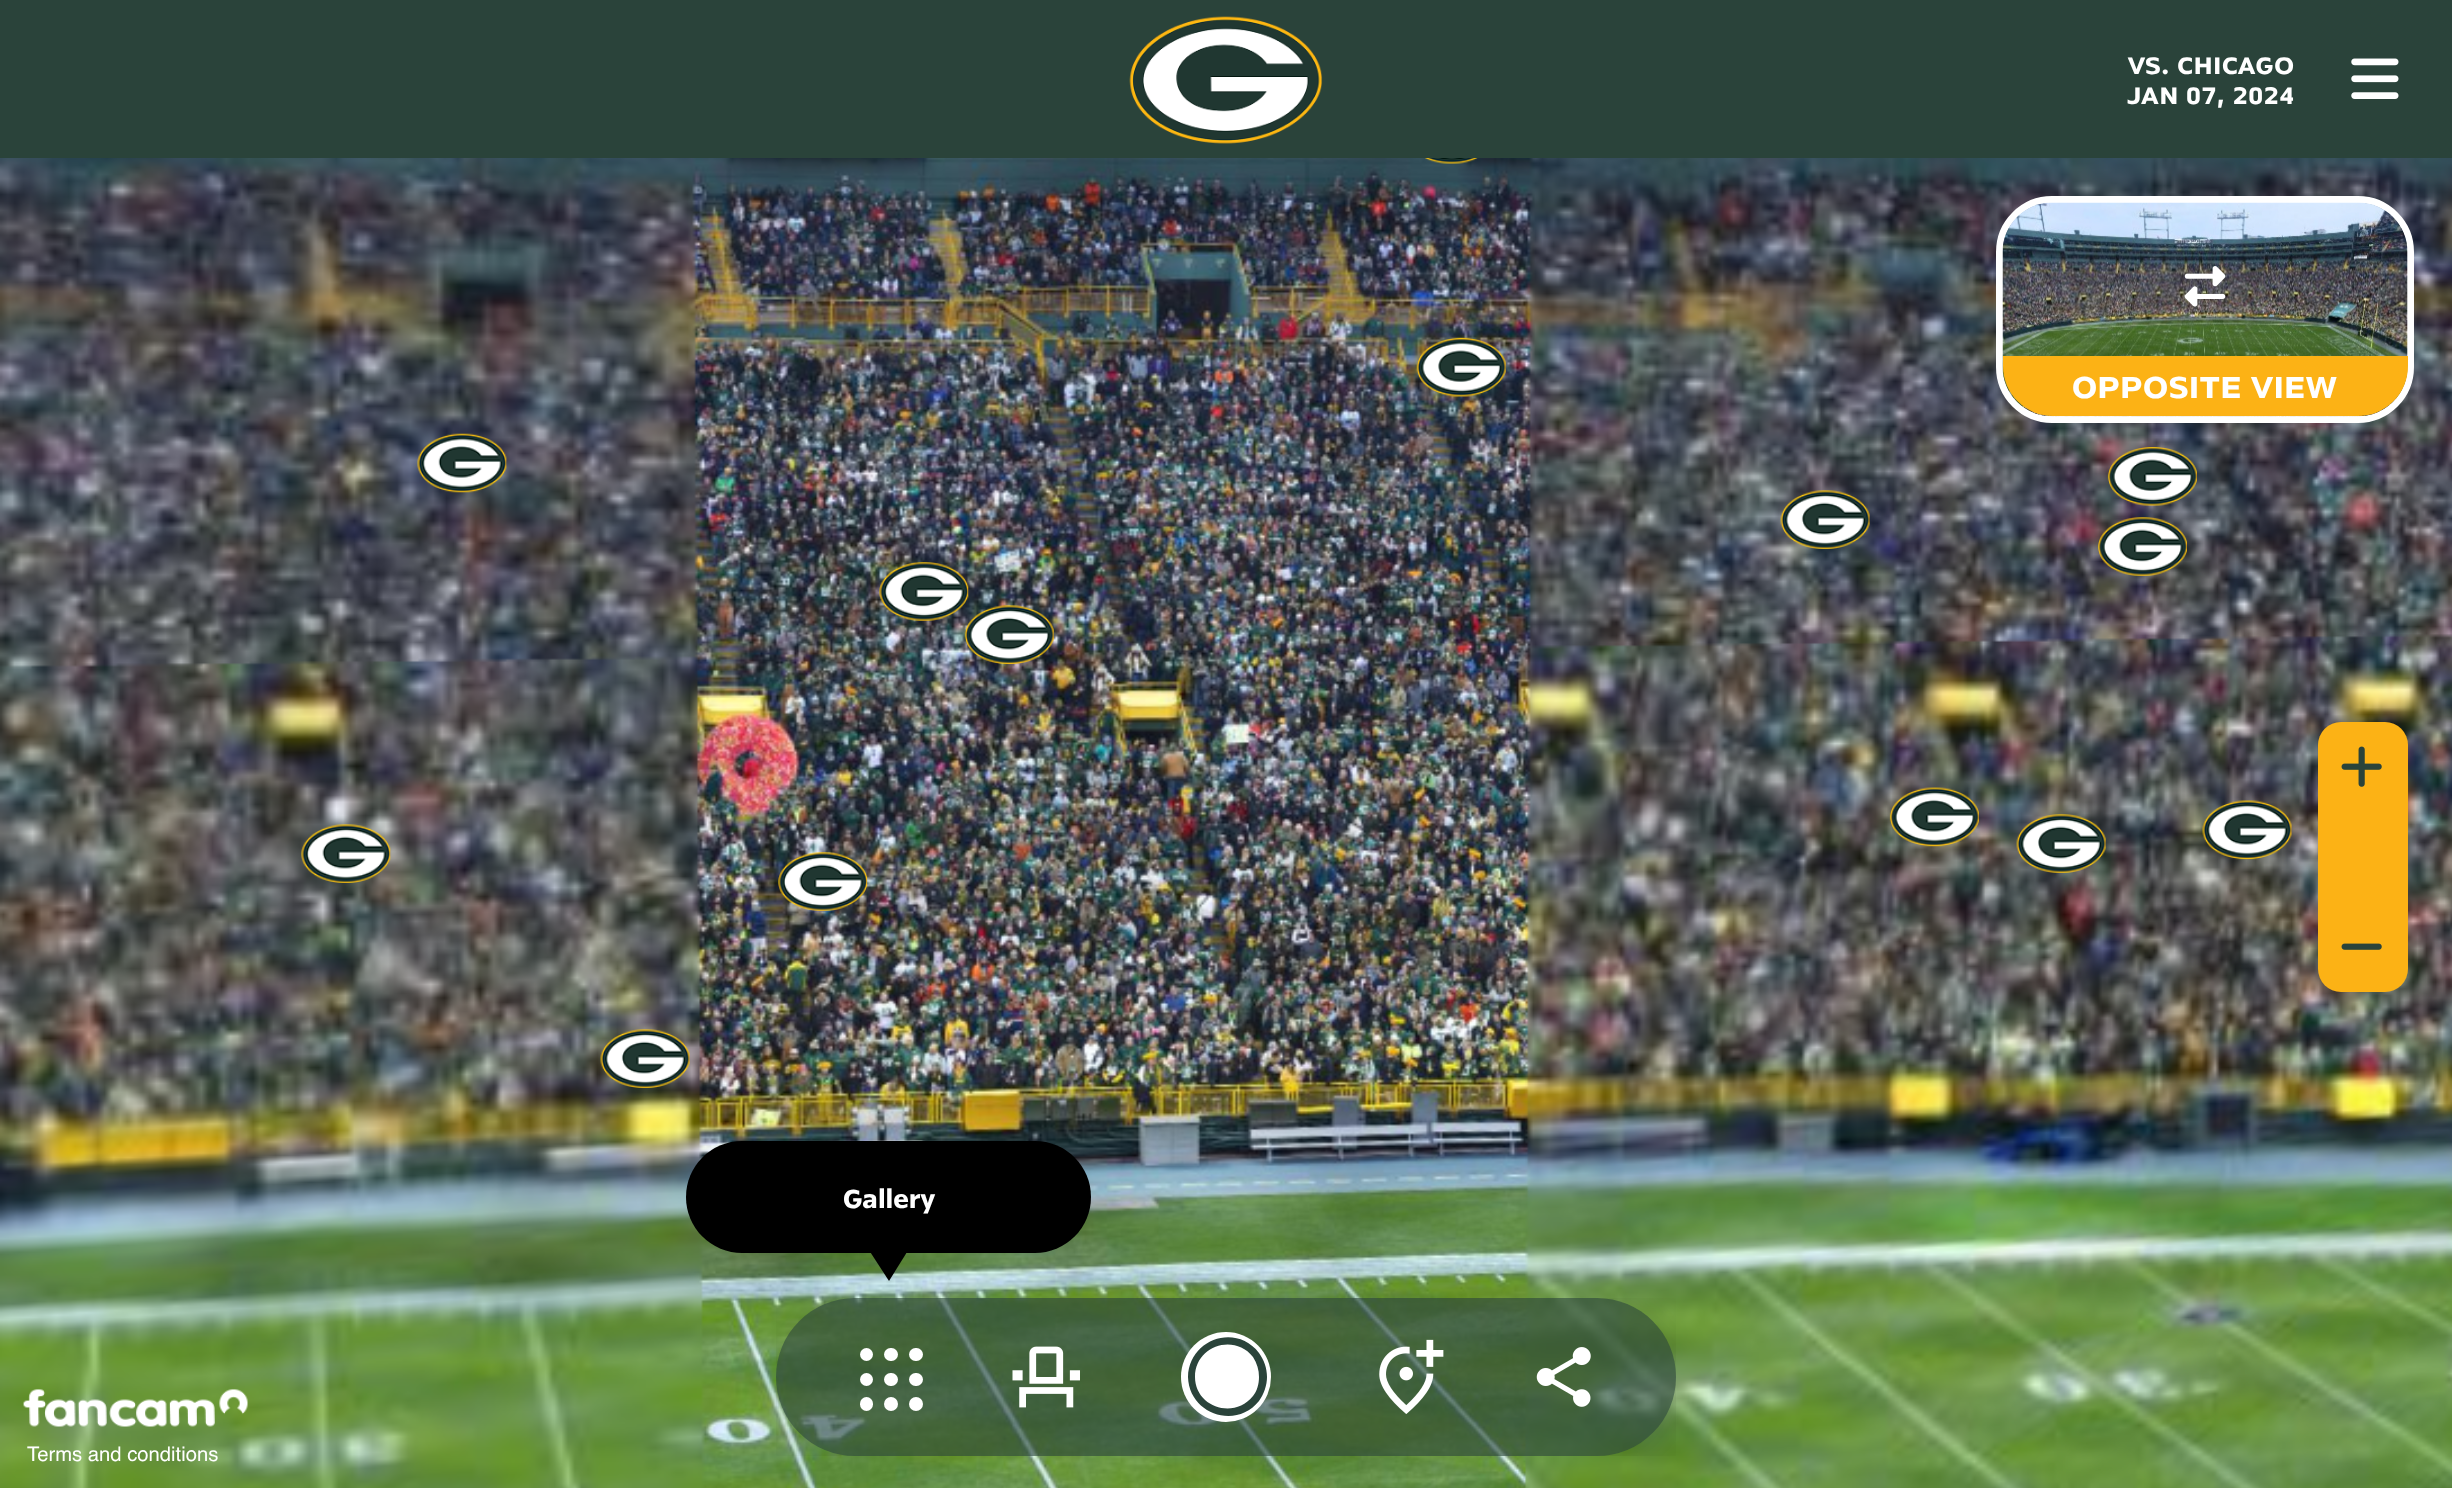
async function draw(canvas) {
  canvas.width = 2452
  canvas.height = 1488
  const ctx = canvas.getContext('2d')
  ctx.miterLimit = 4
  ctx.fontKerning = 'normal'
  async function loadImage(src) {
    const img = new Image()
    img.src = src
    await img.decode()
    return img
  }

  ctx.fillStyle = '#fff'
  ctx.fillRect(0, 0, 2452, 1488)
  ctx.fillStyle = '#2a433a'
  ctx.fillRect(0, 0, 2452, 158)
  ctx.drawImage(await loadImage('image0.png'), 1129, 16, 194, 128)
  ctx.letterSpacing = '1.1px'
  ctx.font = 'bold 24.75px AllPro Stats'
  ctx.fillStyle = '#fff'
  ctx.fillText('VS. CHICAGO', 2128, 74)
  ctx.fillText('JAN 07, 2024', 2127, 104)
  ctx.drawImage(await loadImage('image23.png'), 0, 158, 2452, 1330)
  ctx.drawImage(await loadImage('image1.png'), 1425, 158, 53, 6)
  ctx.drawImage(await loadImage('image2.png'), 1416, 337, 90, 60)
  ctx.drawImage(await loadImage('image3.png'), 417, 433, 90, 60)
  ctx.drawImage(await loadImage('image4.png'), 2107, 447, 90, 59)
  ctx.drawImage(await loadImage('image5.png'), 1780, 490, 90, 59)
  ctx.drawImage(await loadImage('image6.png'), 2098, 517, 89, 59)
  ctx.drawImage(await loadImage('image7.png'), 879, 562, 90, 59)
  ctx.drawImage(await loadImage('image8.png'), 964, 605, 90, 59)
  ctx.drawImage(await loadImage('image9.png'), 301, 824, 90, 59)
  ctx.drawImage(await loadImage('image10.png'), 778, 852, 90, 59)
  ctx.drawImage(await loadImage('image11.png'), 1889, 787, 90, 60)
  ctx.drawImage(await loadImage('image12.png'), 2016, 814, 90, 59)
  ctx.drawImage(await loadImage('image13.png'), 2202, 800, 90, 60)
  ctx.drawImage(await loadImage('image14.png'), 600, 1029, 90, 59)
  ctx.beginPath()
  ctx.roundRect(1999.5, 199.5, 411, 220, 52.5)
  ctx.strokeStyle = '#fff'
  ctx.lineWidth = 7
  ctx.stroke()
  ctx.drawImage(await loadImage('image15.png'), 2002, 202, 406, 215)
  ctx.drawImage(await loadImage('image16.png'), 2184, 266, 42, 41)
  ctx.fillStyle = '#fcb215'
  ctx.beginPath()
  ctx.roundRect(2003, 356, 405, 60, [0, 0, 50, 50])
  ctx.fill()
  ctx.font = 'bold 31.5px AllPro Stats'
  ctx.fillStyle = '#fff'
  ctx.fillText('OPPOSITE VIEW', 2072, 398)
  ctx.fillStyle = '#fcb215'
  ctx.beginPath()
  ctx.roundRect(2318, 722, 90, 135, [23, 23, 0, 0])
  ctx.fill()
  ctx.drawImage(await loadImage('image17.png'), 2341, 746, 41, 41)
  ctx.beginPath()
  ctx.roundRect(2318, 857, 90, 135, [0, 0, 23, 23])
  ctx.fill()
  ctx.drawImage(await loadImage('image18.png'), 2341, 943, 41, 7)
  ctx.save()
  ctx.beginPath()
  ctx.rect(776, 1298, 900, 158)
  ctx.clip()
  ctx.beginPath()
  ctx.moveTo(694, 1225)
  ctx.lineTo(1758, 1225)
  ctx.lineTo(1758, 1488)
  ctx.lineTo(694, 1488)
  ctx.closePath()
  ctx.moveTo(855, 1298)
  ctx.lineTo(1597, 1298)
  ctx.bezierCurveTo(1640.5, 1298, 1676, 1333.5, 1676, 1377)
  ctx.bezierCurveTo(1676, 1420.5, 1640.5, 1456, 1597, 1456)
  ctx.lineTo(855, 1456)
  ctx.bezierCurveTo(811.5, 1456, 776, 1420.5, 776, 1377)
  ctx.bezierCurveTo(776, 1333.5, 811.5, 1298, 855, 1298)
  ctx.closePath()
  ctx.clip('evenodd')
  ctx.fillStyle = '#0000001a'
  ctx.filter = 'blur(27px)'
  ctx.beginPath()
  ctx.roundRect(776, 1307, 900, 158, 79)
  ctx.fill()
  ctx.filter = 'none'
  ctx.restore()
  ctx.fillStyle = '#000'
  ctx.beginPath()
  ctx.roundRect(686, 1141, 405, 112, 56)
  ctx.fill()
  ctx.letterSpacing = '0px'
  ctx.font = 'bold 27px AllPro Stats'
  ctx.fillStyle = '#fff'
  ctx.fillText('Gallery', 843, 1208)
  ctx.fillStyle = '#000'
  ctx.beginPath()
  ctx.moveTo(912, 1244)
  ctx.lineTo(865, 1244)
  ctx.lineTo(889, 1281)
  ctx.closePath()
  ctx.fill()
  ctx.fillStyle = '#2a433a99'
  ctx.beginPath()
  ctx.roundRect(776, 1298, 900, 158, 79)
  ctx.fill()
  ctx.fillStyle = '#fff'
  ctx.beginPath()
  ctx.arc(866.5, 1354.5, 6.5, 0, 2 * Math.PI)
  ctx.fill()
  ctx.beginPath()
  ctx.roundRect(884, 1348, 14, 13, 6.5)
  ctx.fill()
  ctx.beginPath()
  ctx.roundRect(909, 1348, 14, 13, 6.5)
  ctx.fill()
  ctx.beginPath()
  ctx.arc(866.5, 1379.5, 6.5, 0, 2 * Math.PI)
  ctx.fill()
  ctx.beginPath()
  ctx.roundRect(884, 1373, 14, 13, 6.5)
  ctx.fill()
  ctx.beginPath()
  ctx.roundRect(909, 1373, 14, 13, 6.5)
  ctx.fill()
  ctx.beginPath()
  ctx.roundRect(860, 1397, 13, 14, 6.5)
  ctx.fill()
  ctx.beginPath()
  ctx.arc(891, 1404, 7, 0, 2 * Math.PI)
  ctx.fill()
  ctx.beginPath()
  ctx.arc(916, 1404, 7, 0, 2 * Math.PI)
  ctx.fill()
  ctx.drawImage(await loadImage('image19.png'), 1012, 1346, 68, 62)
  ctx.beginPath()
  ctx.arc(1226, 1377, 45, 0, 2 * Math.PI)
  ctx.fill()
  ctx.fillStyle = '#2a433a'
  ctx.beginPath()
  ctx.moveTo(1259, 1377)
  ctx.bezierCurveTo(1259, 1370, 1257, 1363, 1253, 1357)
  ctx.bezierCurveTo(1234, 1333, 1195, 1346, 1195, 1377)
  ctx.bezierCurveTo(1195, 1407, 1234, 1420, 1253, 1396)
  ctx.bezierCurveTo(1257, 1391, 1259, 1384, 1259, 1377)
  ctx.closePath()
  ctx.moveTo(1188, 1377)
  ctx.bezierCurveTo(1189, 1339, 1236, 1323, 1259, 1353)
  ctx.bezierCurveTo(1264, 1360, 1267, 1368, 1267, 1377)
  ctx.bezierCurveTo(1267, 1385, 1264, 1394, 1259, 1401)
  ctx.bezierCurveTo(1236, 1430, 1189, 1414, 1188, 1377)
  ctx.closePath()
  ctx.fill()
  ctx.drawImage(await loadImage('image20.png'), 1379, 1339, 65, 75)
  ctx.drawImage(await loadImage('image21.png'), 1536, 1347, 55, 60)
  ctx.drawImage(await loadImage('image22.png'), 23, 1389, 225, 38)
  ctx.font = '20.25px Helvetica'
  ctx.fillStyle = '#fff'
  ctx.fillText('Terms and conditions', 27, 1461)
  ctx.drawImage(await loadImage('image24.png'), 2351, 58, 48, 41)
}

draw(document.querySelector('canvas'))
